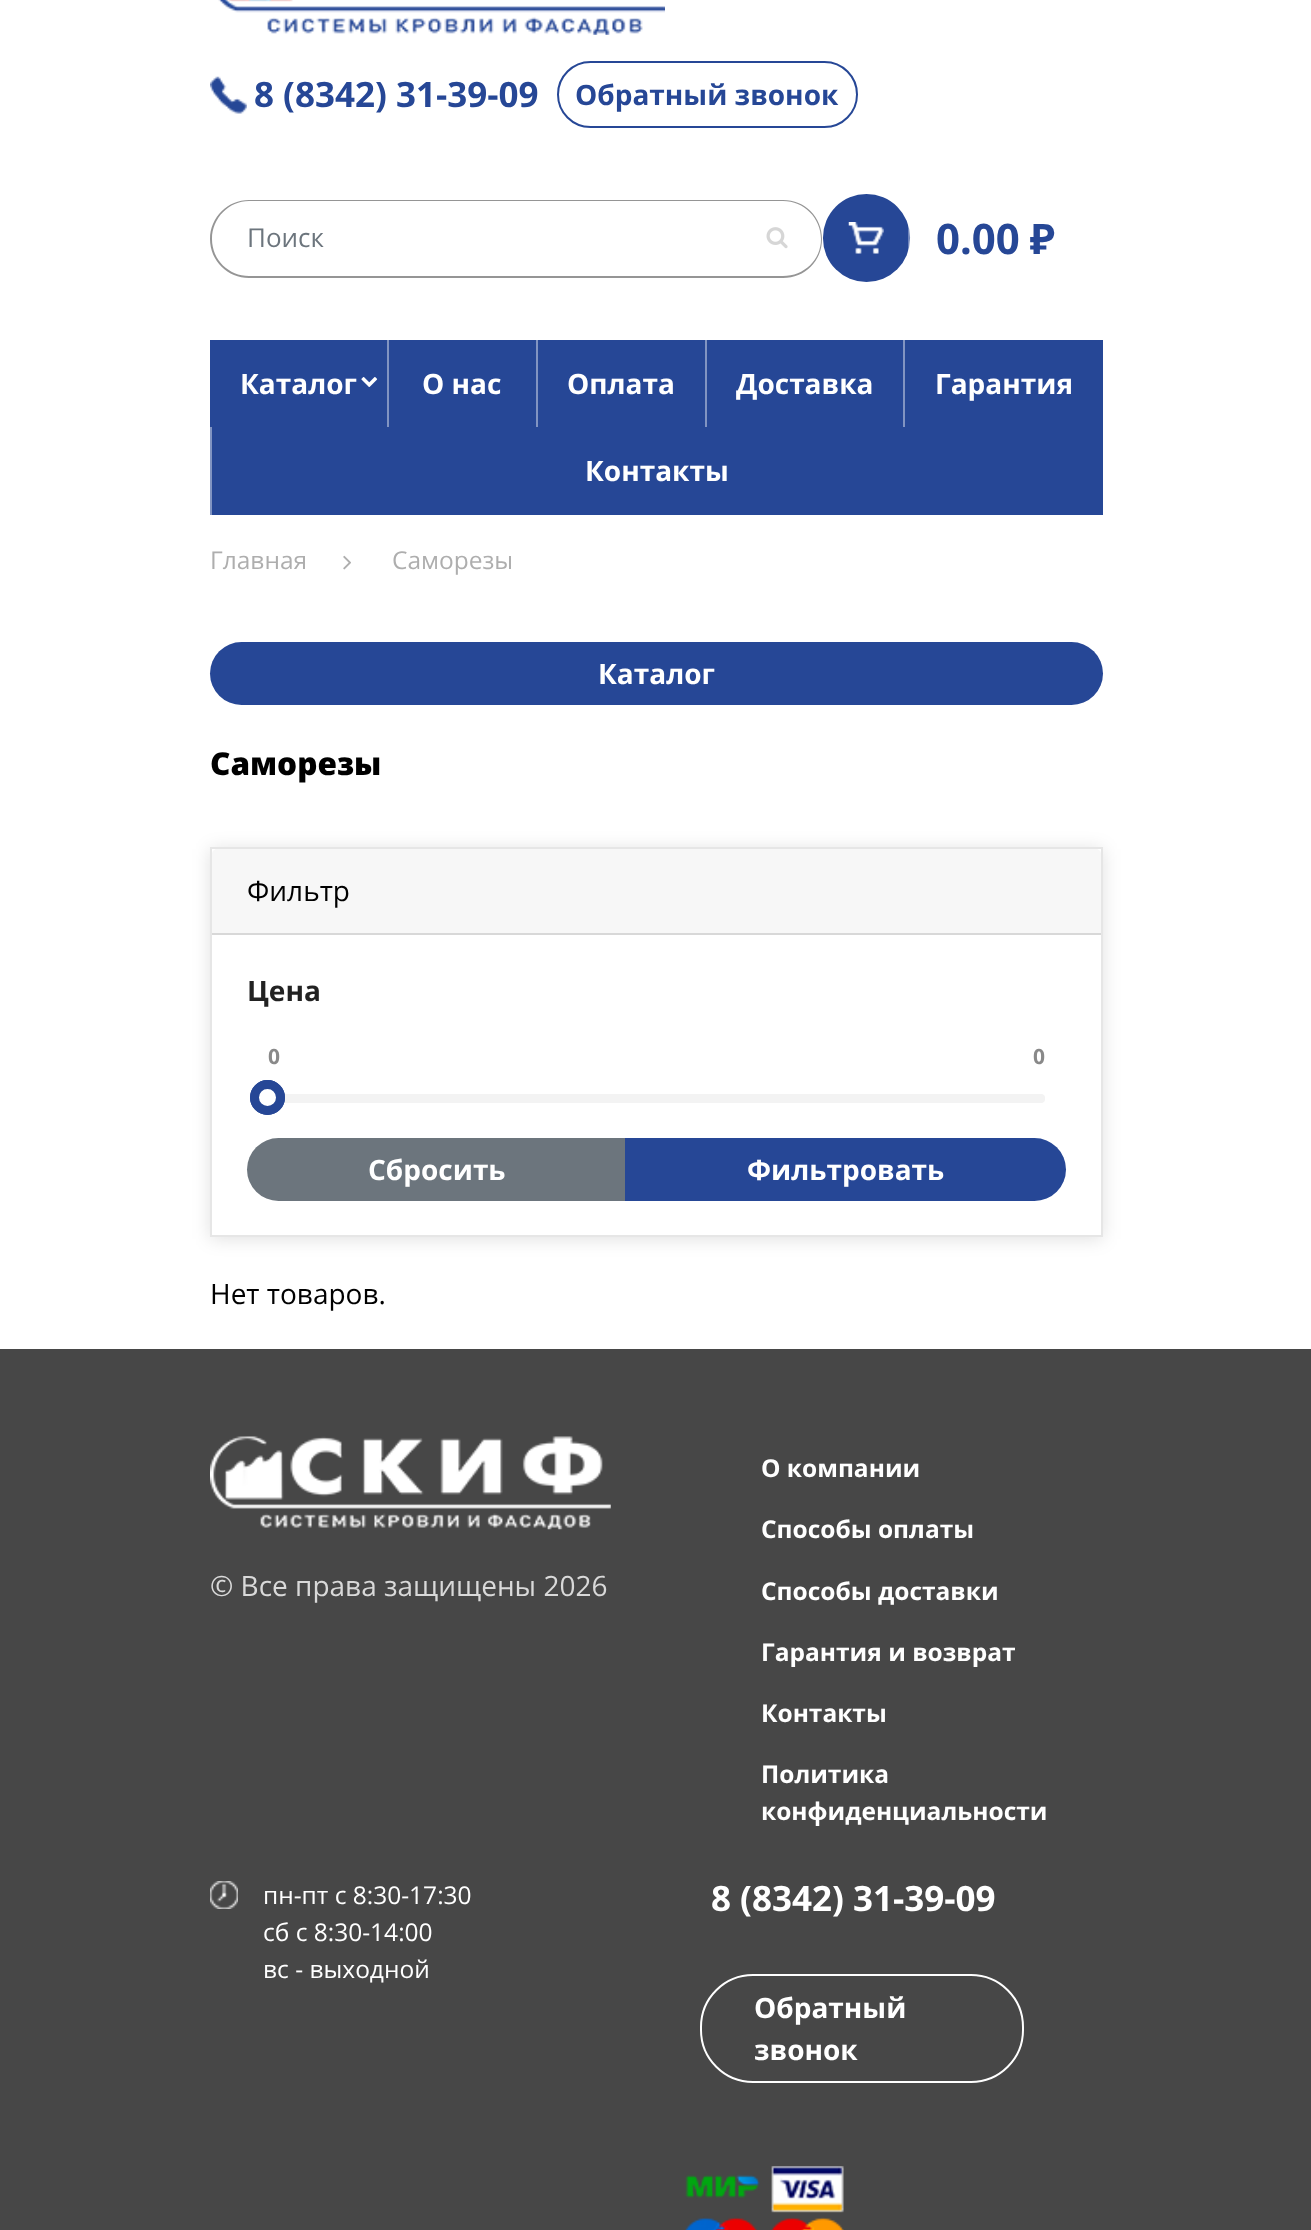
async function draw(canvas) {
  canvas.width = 1311
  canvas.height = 2230
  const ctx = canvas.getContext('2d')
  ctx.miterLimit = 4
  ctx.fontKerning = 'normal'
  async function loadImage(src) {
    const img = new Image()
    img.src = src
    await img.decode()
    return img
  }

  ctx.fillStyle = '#fff'
  ctx.fillRect(0, 0, 1311, 2230)
  ctx.drawImage(await loadImage('image0.png'), 218, 0, 447, 35)
  ctx.drawImage(await loadImage('image1.png'), 210, 76, 37, 38)
  ctx.font = 'bold 35px Open Sans'
  ctx.fillStyle = '#264796'
  ctx.fillText('8 (8342) 31-39-09', 254, 107)
  ctx.beginPath()
  ctx.roundRect(558, 62, 299, 65, 32.5)
  ctx.strokeStyle = '#264796'
  ctx.lineWidth = 2
  ctx.stroke()
  ctx.font = 'bold 28px Open Sans'
  ctx.fillText('Обратный звонок', 575, 105)
  ctx.fillStyle = '#959595'
  ctx.beginPath()
  ctx.moveTo(249, 200)
  ctx.lineTo(737, 200)
  ctx.lineTo(737, 278)
  ctx.lineTo(249, 278)
  ctx.bezierCurveTo(228, 278, 210, 261, 210, 239)
  ctx.bezierCurveTo(210, 217, 228, 200, 249, 200)
  ctx.closePath()
  ctx.moveTo(249, 201)
  ctx.lineTo(737, 201)
  ctx.lineTo(737, 276)
  ctx.lineTo(249, 276)
  ctx.bezierCurveTo(229, 276, 212, 260, 212, 239)
  ctx.bezierCurveTo(212, 218, 229, 201, 249, 201)
  ctx.closePath()
  ctx.fill('evenodd')
  ctx.font = '26px Open Sans'
  ctx.fillStyle = '#6c757d'
  ctx.fillText('Поиск', 247, 247)
  ctx.fillStyle = '#959595'
  ctx.beginPath()
  ctx.moveTo(735, 200)
  ctx.lineTo(783, 200)
  ctx.bezierCurveTo(805, 200, 822, 217, 822, 239)
  ctx.bezierCurveTo(822, 261, 805, 278, 783, 278)
  ctx.lineTo(735, 278)
  ctx.closePath()
  ctx.moveTo(735, 201)
  ctx.lineTo(783, 201)
  ctx.bezierCurveTo(804, 201, 821, 218, 821, 239)
  ctx.bezierCurveTo(821, 260, 804, 276, 783, 276)
  ctx.lineTo(735, 276)
  ctx.closePath()
  ctx.fill('evenodd')
  ctx.drawImage(await loadImage('image2.png'), 766, 227, 22, 22)
  ctx.fillStyle = '#264796'
  ctx.beginPath()
  ctx.roundRect(823, 194, 87, 88, 43.5)
  ctx.fill()
  ctx.drawImage(await loadImage('image3.png'), 848, 222, 36, 32)
  ctx.fillStyle = '#ffffff57'
  ctx.fillRect(908, 217, 2, 35)
  ctx.wordSpacing = '-1px'
  ctx.font = 'bold 42px Noto Sans'
  ctx.fillStyle = '#264796'
  ctx.fillText('0.00 ₽', 936, 254)
  ctx.fillRect(210, 340, 893, 175)
  ctx.wordSpacing = '0px'
  ctx.font = 'bold 28px Open Sans'
  ctx.fillStyle = '#fff'
  ctx.fillText('Каталог', 240, 394)
  ctx.drawImage(await loadImage('image4.png'), 361, 377, 17, 10)
  ctx.fillStyle = '#8194c2'
  ctx.fillRect(387, 340, 2, 87)
  ctx.fillStyle = '#fff'
  ctx.fillText('О нас', 422, 394)
  ctx.fillStyle = '#8194c2'
  ctx.fillRect(536, 340, 2, 87)
  ctx.fillStyle = '#fff'
  ctx.fillText('Оплата', 567, 394)
  ctx.fillStyle = '#8194c2'
  ctx.fillRect(705, 340, 2, 87)
  ctx.fillStyle = '#fff'
  ctx.fillText('Доставка', 736, 394)
  ctx.fillStyle = '#8194c2'
  ctx.fillRect(903, 340, 2, 87)
  ctx.fillStyle = '#fff'
  ctx.fillText('Гарантия', 935, 394)
  ctx.fillStyle = '#8194c2'
  ctx.fillRect(210, 427, 2, 88)
  ctx.fillStyle = '#fff'
  ctx.fillText('Контакты', 585, 481)
  ctx.font = '24.5px Open Sans'
  ctx.fillStyle = '#aeaeae'
  ctx.fillText('Главная', 210, 569)
  ctx.drawImage(await loadImage('image5.png'), 343, 555, 8, 15)
  ctx.fillText('Саморезы', 392, 569)
  ctx.fillStyle = '#264796'
  ctx.beginPath()
  ctx.roundRect(210, 642, 893, 63, 31.5)
  ctx.fill()
  ctx.font = 'bold 28px Open Sans'
  ctx.fillStyle = '#fff'
  ctx.fillText('Каталог', 598, 684)
  ctx.font = '800 31.5px Open Sans'
  ctx.fillStyle = '#000'
  ctx.fillText('Саморезы', 210, 775)
  ctx.fillStyle = '#0000001f'
  ctx.filter = 'blur(9px)'
  ctx.beginPath()
  ctx.rect(210, 849, 893, 390)
  ctx.fill()
  ctx.filter = 'none'
  ctx.fillStyle = '#fff'
  ctx.beginPath()
  ctx.rect(211, 848, 891, 388)
  ctx.fill()
  ctx.strokeStyle = '#e6e6e6'
  ctx.stroke()
  ctx.fillStyle = '#f7f7f7'
  ctx.beginPath()
  ctx.roundRect(212, 849, 889, 86, [5, 5, 0, 0])
  ctx.fill()
  ctx.fillStyle = '#d8d8d8'
  ctx.fillRect(212, 933, 889, 2)
  ctx.font = '28px Open Sans'
  ctx.fillStyle = '#000'
  ctx.fillText('Фильтр', 247, 901)
  ctx.font = 'bold 28px Open Sans'
  ctx.fillStyle = '#222'
  ctx.fillText('Цена', 247, 1001)
  ctx.fillStyle = '#f3f3f3'
  ctx.beginPath()
  ctx.roundRect(268, 1094, 777, 9, 4)
  ctx.fill()
  ctx.font = 'bold 21px Open Sans'
  ctx.fillStyle = '#898989'
  ctx.fillText('0', 268, 1064)
  ctx.fillText('0', 1033, 1064)
  ctx.beginPath()
  ctx.arc(267.5, 1097.5, 13, 0, 2 * Math.PI)
  ctx.strokeStyle = '#264796'
  ctx.lineWidth = 9
  ctx.stroke()
  ctx.fillStyle = '#fff'
  ctx.beginPath()
  ctx.arc(267.5, 1097.5, 13, 0, 2 * Math.PI)
  ctx.fill()
  ctx.stroke()
  ctx.fillStyle = '#6c757d'
  ctx.beginPath()
  ctx.roundRect(247, 1138, 380, 63, [31.5, 0, 0, 31.5])
  ctx.fill()
  ctx.font = 'bold 28px Open Sans'
  ctx.fillStyle = '#fff'
  ctx.fillText('Сбросить', 368, 1180)
  ctx.fillStyle = '#264796'
  ctx.beginPath()
  ctx.roundRect(625, 1138, 441, 63, [0, 31.5, 31.5, 0])
  ctx.fill()
  ctx.fillStyle = '#fff'
  ctx.fillText('Фильтровать', 747, 1180)
  ctx.font = '28px Open Sans'
  ctx.fillStyle = '#000'
  ctx.fillText('Нет товаров.', 210, 1304)
  ctx.fillStyle = '#474747'
  ctx.fillRect(0, 1349, 1311, 881)
  ctx.drawImage(await loadImage('image6.png'), 210, 1436, 401, 94)
  ctx.fillStyle = '#d9d9d9'
  ctx.fillText('© Все права защищены 2026', 210, 1596)
  ctx.font = 'bold 24.5px Open Sans'
  ctx.fillStyle = '#fff'
  ctx.fillText('О компании', 761, 1477)
  ctx.fillText('Способы оплаты', 761, 1538)
  ctx.fillText('Способы доставки', 761, 1600)
  ctx.fillText('Гарантия и возврат', 761, 1661)
  ctx.fillText('Контакты', 761, 1722)
  ctx.fillText('Политика', 761, 1783)
  ctx.fillText('конфиденциальности', 761, 1820)
  ctx.drawImage(await loadImage('image7.png'), 210, 1881, 28, 28)
  ctx.font = '24.5px Open Sans'
  ctx.fillText('пн-пт с 8:30-17:30', 263, 1904)
  ctx.fillText('сб с 8:30-14:00', 263, 1941)
  ctx.fillText('вс - выходной', 263, 1978)
  ctx.font = 'bold 35px Open Sans'
  ctx.fillText('8 (8342) 31-39-09', 711, 1911)
  ctx.beginPath()
  ctx.roundRect(701, 1975, 322, 107, 52)
  ctx.strokeStyle = '#fff'
  ctx.lineWidth = 2
  ctx.stroke()
  ctx.font = 'bold 28px Open Sans'
  ctx.fillText('Обратный', 754, 2018)
  ctx.fillText('звонок', 754, 2060)
  ctx.drawImage(await loadImage('image8.png'), 685, 2166, 159, 64)
}

draw(document.querySelector('canvas'))
